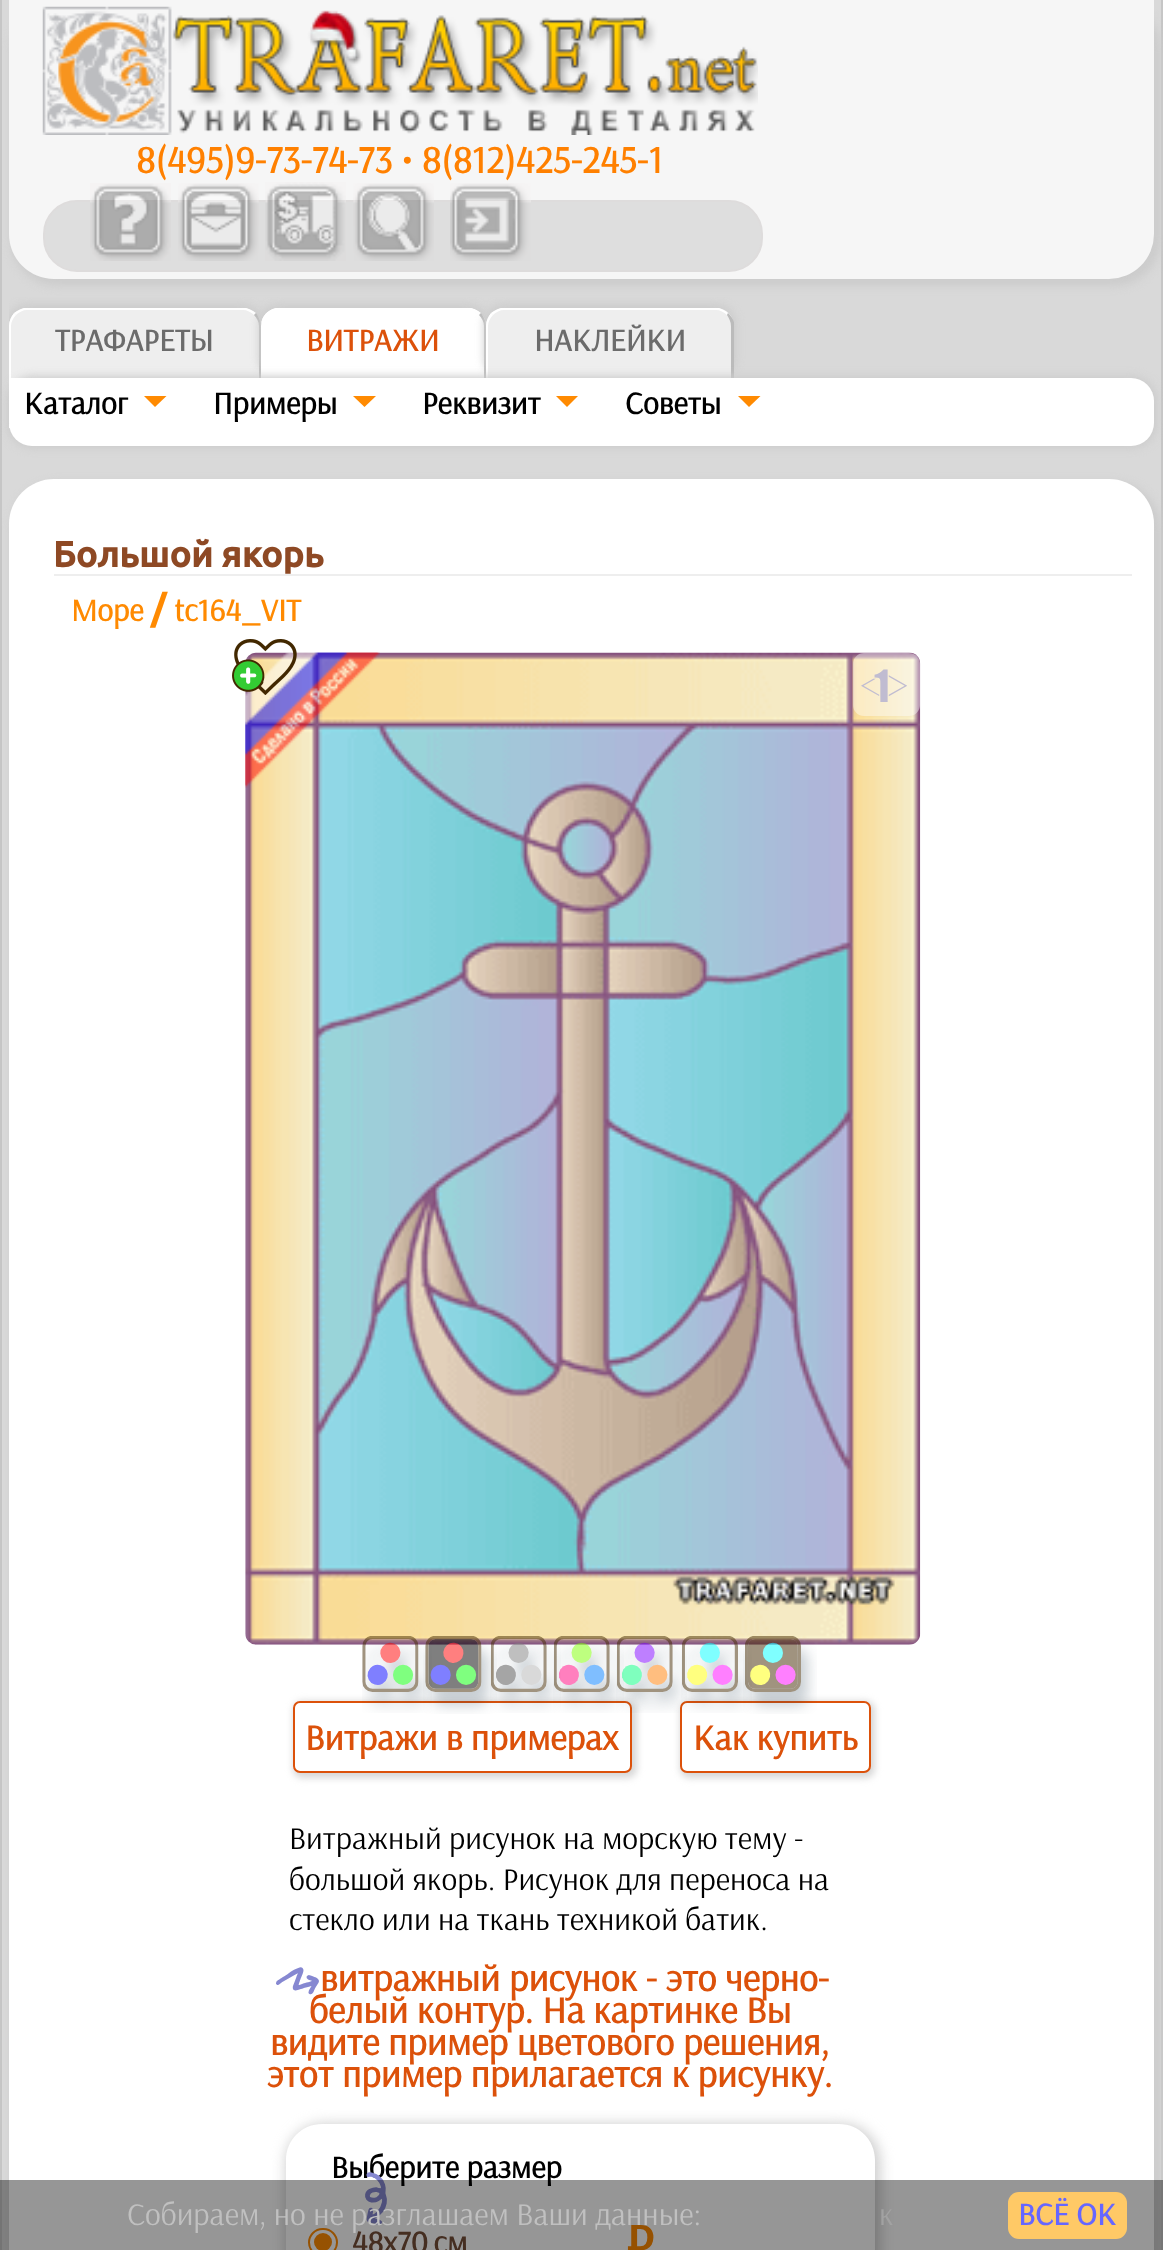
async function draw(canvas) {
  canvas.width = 1163
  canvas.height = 2250
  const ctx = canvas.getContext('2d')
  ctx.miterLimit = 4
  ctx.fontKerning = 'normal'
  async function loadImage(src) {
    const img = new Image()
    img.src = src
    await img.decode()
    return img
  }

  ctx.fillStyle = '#d9d9d9'
  ctx.fillRect(0, 0, 1163, 2250)
  ctx.fillStyle = '#c6c6c6'
  ctx.fillRect(1161, 0, 2, 2250)
  ctx.fillRect(0, 0, 2, 2250)
  ctx.fillStyle = '#ccc'
  ctx.filter = 'blur(4.5px)'
  ctx.beginPath()
  ctx.roundRect(11, 2, 1150, 284, 47)
  ctx.fill()
  ctx.filter = 'none'
  ctx.fillStyle = '#f6f6f6'
  ctx.beginPath()
  ctx.roundRect(9, 0, 1145, 279, [0, 0, 45, 45])
  ctx.fill()
  ctx.drawImage(await loadImage('image0.png'), 42, 6, 716, 129)
  ctx.font = 'bold 38.25px Arsenal'
  ctx.fillStyle = '#ff8000'
  ctx.fillText('8(495)9-73-74-73 • 8(812)425-245-1', 136, 173)
  ctx.fillStyle = '#dedede'
  ctx.beginPath()
  ctx.roundRect(44, 201, 718, 70, 33)
  ctx.fill()
  ctx.strokeStyle = '#dedcdc'
  ctx.lineWidth = 2
  ctx.stroke()
  ctx.drawImage(await loadImage('image1.png'), 90, 183, 81, 78)
  ctx.drawImage(await loadImage('image2.png'), 178, 183, 81, 78)
  ctx.drawImage(await loadImage('image3.png'), 265, 182, 81, 79)
  ctx.drawImage(await loadImage('image4.png'), 353, 183, 81, 78)
  ctx.drawImage(await loadImage('image5.png'), 450, 183, 81, 78)
  ctx.save()
  ctx.beginPath()
  ctx.rect(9, 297, 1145, 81)
  ctx.clip()
  ctx.fillStyle = '#ccc'
  ctx.filter = 'blur(4.5px)'
  ctx.beginPath()
  ctx.roundRect(7, 304, 256, 74, 20)
  ctx.fill()
  ctx.filter = 'none'
  ctx.restore()
  ctx.fillStyle = '#eee'
  ctx.beginPath()
  ctx.roundRect(9, 308, 252, 70, [18, 18, 0, 0])
  ctx.fill()
  ctx.fillStyle = '#fff'
  ctx.beginPath()
  ctx.moveTo(27, 310)
  ctx.bezierCurveTo(23, 310, 19, 312, 16, 315)
  ctx.lineTo(14, 313)
  ctx.bezierCurveTo(17, 311, 20, 309, 24, 308)
  ctx.lineTo(246, 308)
  ctx.bezierCurveTo(250, 309, 253, 311, 256, 313)
  ctx.lineTo(254, 315)
  ctx.bezierCurveTo(251, 312, 247, 310, 243, 310)
  ctx.closePath()
  ctx.fill()
  ctx.fillStyle = '#bbb'
  ctx.beginPath()
  ctx.moveTo(259, 378)
  ctx.lineTo(261, 378)
  ctx.lineTo(261, 326)
  ctx.bezierCurveTo(261, 321, 259, 317, 256, 313)
  ctx.lineTo(254, 315)
  ctx.bezierCurveTo(257, 318, 259, 322, 259, 326)
  ctx.closePath()
  ctx.fill()
  ctx.fillStyle = '#fff'
  ctx.beginPath()
  ctx.moveTo(9, 378)
  ctx.lineTo(11, 378)
  ctx.lineTo(11, 326)
  ctx.bezierCurveTo(11, 322, 13, 318, 16, 315)
  ctx.lineTo(14, 313)
  ctx.bezierCurveTo(11, 317, 9, 321, 9, 326)
  ctx.closePath()
  ctx.fill()
  ctx.font = 'bold 31.5px Arsenal'
  ctx.fillStyle = '#6b6b6b'
  ctx.fillText('ТРАФАРЕТЫ', 55, 351)
  ctx.save()
  ctx.beginPath()
  ctx.rect(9, 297, 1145, 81)
  ctx.clip()
  ctx.fillStyle = '#ccc'
  ctx.filter = 'blur(4.5px)'
  ctx.beginPath()
  ctx.roundRect(259, 304, 229, 74, 20)
  ctx.fill()
  ctx.filter = 'none'
  ctx.restore()
  ctx.fillStyle = '#fff'
  ctx.beginPath()
  ctx.roundRect(261, 308, 225, 70, [18, 18, 0, 0])
  ctx.fill()
  ctx.beginPath()
  ctx.moveTo(279, 310)
  ctx.bezierCurveTo(269, 310, 261, 318, 261, 326)
  ctx.bezierCurveTo(261, 317, 267, 310, 276, 308)
  ctx.lineTo(471, 308)
  ctx.bezierCurveTo(475, 309, 478, 311, 481, 313)
  ctx.lineTo(479, 315)
  ctx.bezierCurveTo(476, 312, 472, 310, 468, 310)
  ctx.closePath()
  ctx.fill()
  ctx.fillStyle = '#bbb'
  ctx.beginPath()
  ctx.moveTo(484, 378)
  ctx.lineTo(486, 378)
  ctx.lineTo(486, 326)
  ctx.bezierCurveTo(486, 321, 484, 317, 481, 313)
  ctx.lineTo(479, 315)
  ctx.bezierCurveTo(482, 318, 484, 322, 484, 326)
  ctx.closePath()
  ctx.fill()
  ctx.fillStyle = '#dc510a'
  ctx.fillText('ВИТРАЖИ', 306, 351)
  ctx.save()
  ctx.beginPath()
  ctx.rect(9, 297, 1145, 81)
  ctx.clip()
  ctx.fillStyle = '#ccc'
  ctx.filter = 'blur(4.5px)'
  ctx.beginPath()
  ctx.roundRect(484, 304, 252, 74, 20)
  ctx.fill()
  ctx.filter = 'none'
  ctx.restore()
  ctx.fillStyle = '#eee'
  ctx.beginPath()
  ctx.roundRect(486, 308, 248, 70, [18, 18, 0, 0])
  ctx.fill()
  ctx.fillStyle = '#fff'
  ctx.beginPath()
  ctx.moveTo(504, 310)
  ctx.bezierCurveTo(500, 310, 496, 312, 493, 315)
  ctx.lineTo(491, 313)
  ctx.bezierCurveTo(494, 311, 497, 309, 501, 308)
  ctx.lineTo(719, 308)
  ctx.bezierCurveTo(722, 309, 726, 311, 728, 313)
  ctx.lineTo(727, 315)
  ctx.bezierCurveTo(724, 312, 720, 310, 716, 310)
  ctx.closePath()
  ctx.fill()
  ctx.fillStyle = '#bbb'
  ctx.beginPath()
  ctx.moveTo(727, 315)
  ctx.lineTo(728, 313)
  ctx.bezierCurveTo(731, 316, 733, 319, 734, 322)
  ctx.lineTo(734, 378)
  ctx.lineTo(731, 378)
  ctx.lineTo(731, 326)
  ctx.bezierCurveTo(731, 322, 729, 318, 727, 315)
  ctx.closePath()
  ctx.fill()
  ctx.fillStyle = '#fff'
  ctx.beginPath()
  ctx.moveTo(486, 378)
  ctx.lineTo(488, 378)
  ctx.lineTo(488, 326)
  ctx.bezierCurveTo(488, 322, 490, 318, 493, 315)
  ctx.lineTo(491, 313)
  ctx.bezierCurveTo(488, 317, 486, 321, 486, 326)
  ctx.closePath()
  ctx.fill()
  ctx.fillStyle = '#6b6b6b'
  ctx.fillText('НАКЛЕЙКИ', 534, 351)
  ctx.fillStyle = '#ccc'
  ctx.filter = 'blur(4.5px)'
  ctx.beginPath()
  ctx.roundRect(7, 376, 1150, 72, 25)
  ctx.fill()
  ctx.filter = 'none'
  ctx.fillStyle = '#fff'
  ctx.beginPath()
  ctx.roundRect(9, 378, 1145, 68, [0, 23, 23, 23])
  ctx.fill()
  ctx.fillRect(9, 424, 1, 4)
  ctx.fillStyle = '#000'
  ctx.fillText('Кaтaлoг', 24, 414)
  ctx.fillStyle = '#ff8a01'
  ctx.beginPath()
  ctx.moveTo(144, 396)
  ctx.lineTo(166.5, 396)
  ctx.lineTo(155, 407)
  ctx.closePath()
  ctx.fill()
  ctx.fillStyle = '#000'
  ctx.fillText('Примеры', 213, 414)
  ctx.fillStyle = '#ff8a01'
  ctx.beginPath()
  ctx.moveTo(353, 396)
  ctx.lineTo(376, 396)
  ctx.lineTo(364.5, 407)
  ctx.closePath()
  ctx.fill()
  ctx.fillStyle = '#000'
  ctx.fillText('Реквизит', 422, 414)
  ctx.fillStyle = '#ff8a01'
  ctx.beginPath()
  ctx.moveTo(556, 396)
  ctx.lineTo(578, 396)
  ctx.lineTo(567, 407)
  ctx.closePath()
  ctx.fill()
  ctx.fillStyle = '#000'
  ctx.fillText('Советы', 625, 414)
  ctx.fillStyle = '#ff8a01'
  ctx.beginPath()
  ctx.moveTo(738, 396)
  ctx.lineTo(760.5, 396)
  ctx.lineTo(749, 407)
  ctx.closePath()
  ctx.fill()
  ctx.fillStyle = '#ccc'
  ctx.filter = 'blur(4.5px)'
  ctx.beginPath()
  ctx.roundRect(11, 482, 1150, 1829, 47)
  ctx.fill()
  ctx.filter = 'none'
  ctx.fillStyle = '#fff'
  ctx.beginPath()
  ctx.roundRect(9, 479, 1145, 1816, 45)
  ctx.fill()
  ctx.fillStyle = '#eee'
  ctx.fillRect(54, 574, 1078, 2)
  ctx.font = 'bold 36px Ubuntu'
  ctx.fillStyle = '#8e4924'
  ctx.fillText('Большой якорь', 53, 567)
  ctx.font = 'bold 31.5px Arsenal'
  ctx.fillStyle = '#ff8a01'
  ctx.fillText('Море', 71, 621)
  ctx.font = 'bold 36px Ubuntu'
  ctx.fillText('/', 151, 621)
  ctx.font = 'bold 31.5px Arsenal'
  ctx.fillText('tc164_VIT', 174, 621)
  ctx.drawImage(await loadImage('image7.png'), 245, 652, 676, 993)
  ctx.drawImage(await loadImage('image8.png'), 245, 652, 135, 136)
  ctx.drawImage(await loadImage('image6.png'), 232, 639, 65, 56)
  ctx.fillStyle = '#ffffff6e'
  ctx.beginPath()
  ctx.roundRect(853, 653, 67, 63, 11)
  ctx.fill()
  ctx.letterSpacing = '3px'
  ctx.font = '50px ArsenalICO'
  ctx.fillStyle = '#c0bcd1'
  ctx.fillText('a', 861, 702)
  ctx.fillStyle = '#d7d7d7'
  ctx.filter = 'blur(3.5px)'
  ctx.beginPath()
  ctx.roundRect(293, 1701, 344, 77, 9)
  ctx.fill()
  ctx.filter = 'none'
  ctx.fillStyle = '#fff'
  ctx.beginPath()
  ctx.roundRect(294, 1702, 337, 70, 6)
  ctx.fill()
  ctx.strokeStyle = '#dc510a'
  ctx.stroke()
  ctx.drawImage(await loadImage('image9.png'), 362, 1636, 70, 77)
  ctx.drawImage(await loadImage('image10.png'), 423, 1636, 74, 78)
  ctx.drawImage(await loadImage('image11.png'), 490, 1636, 71, 77)
  ctx.drawImage(await loadImage('image12.png'), 553, 1636, 71, 77)
  ctx.fillStyle = '#d7d7d7'
  ctx.filter = 'blur(3.5px)'
  ctx.beginPath()
  ctx.roundRect(680, 1701, 195, 77, 9)
  ctx.fill()
  ctx.filter = 'none'
  ctx.fillStyle = '#fff'
  ctx.beginPath()
  ctx.roundRect(681, 1702, 189, 70, 6)
  ctx.fill()
  ctx.stroke()
  ctx.drawImage(await loadImage('image13.png'), 616, 1636, 71, 77)
  ctx.drawImage(await loadImage('image14.png'), 681, 1636, 71, 77)
  ctx.drawImage(await loadImage('image15.png'), 743, 1636, 74, 78)
  ctx.letterSpacing = '0px'
  ctx.font = 'bold 36px Arsenal'
  ctx.fillStyle = '#dc510a'
  ctx.fillText('Витражи в примерах', 305, 1750)
  ctx.fillText('Как купить', 693, 1750)
  ctx.font = '31.5px Arsenal'
  ctx.fillStyle = '#000'
  ctx.fillText('Витражный рисунок на морскую тему -', 289, 1849)
  ctx.fillText('большой якорь. Рисунок для переноса на', 289, 1890)
  ctx.fillText('стекло или на ткань техникой батик.', 289, 1930)
  ctx.font = '50px ArsenalICO'
  ctx.fillStyle = '#8688d1'
  ctx.save()
  ctx.translate(293, 1994)
  ctx.rotate(-60 * Math.PI / 180)
  ctx.fillText('O', 0, 0)
  ctx.restore()
  ctx.font = 'bold 37.75px Arsenal'
  ctx.fillStyle = '#dc510a'
  ctx.fillText('витражный рисунок - это черно-', 320, 1991)
  ctx.fillText('белый контур. На картинке Вы', 309, 2023)
  ctx.fillText('видите пример цветового решения,', 270, 2055)
  ctx.fillText('этот пример прилагается к рисунку.', 267, 2087)
  ctx.save()
  ctx.beginPath()
  ctx.moveTo(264, 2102)
  ctx.lineTo(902, 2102)
  ctx.lineTo(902, 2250)
  ctx.lineTo(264, 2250)
  ctx.closePath()
  ctx.moveTo(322, 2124)
  ctx.lineTo(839, 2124)
  ctx.bezierCurveTo(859, 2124, 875, 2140, 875, 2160)
  ctx.lineTo(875, 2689)
  ctx.bezierCurveTo(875, 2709, 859, 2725, 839, 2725)
  ctx.lineTo(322, 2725)
  ctx.bezierCurveTo(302, 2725, 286, 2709, 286, 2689)
  ctx.lineTo(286, 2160)
  ctx.bezierCurveTo(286, 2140, 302, 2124, 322, 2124)
  ctx.closePath()
  ctx.clip('evenodd')
  ctx.fillStyle = '#ccc'
  ctx.filter = 'blur(7px)'
  ctx.beginPath()
  ctx.roundRect(286, 2124, 594, 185, 38)
  ctx.fill()
  ctx.filter = 'none'
  ctx.restore()
  ctx.font = 'bold 31.5px Arsenal'
  ctx.fillStyle = '#000'
  ctx.fillText('Выберите размер', 331, 2178)
  ctx.font = '50px ArsenalICO'
  ctx.fillStyle = '#8688d1'
  ctx.save()
  ctx.translate(346, 2168)
  ctx.rotate(100 * Math.PI / 180)
  ctx.fillText('Z', 0, 0)
  ctx.restore()
  ctx.beginPath()
  ctx.roundRect(309, 2229, 28, 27, 13.5)
  ctx.strokeStyle = '#ff8c05'
  ctx.stroke()
  ctx.fillStyle = '#ff8c05'
  ctx.beginPath()
  ctx.arc(323, 2242, 9, 0, 2 * Math.PI)
  ctx.fill()
  ctx.font = 'bold 31.5px Arsenal'
  ctx.fillStyle = '#754e38'
  ctx.fillText('48x70 см', 352, 2253)
  ctx.font = 'bold 56px Arsenal'
  ctx.fillStyle = '#ff8a01'
  ctx.fillText('₽', 626, 2263)
  ctx.fillStyle = '#00000069'
  ctx.fillRect(0, 2180, 1163, 70)
  ctx.font = '31.5px Arsenal'
  ctx.fillStyle = '#c0c0c0'
  ctx.fillText('Собираем, но не разглашаем Ваши данные:', 127, 2225)
  ctx.fillStyle = '#a2a2a2'
  ctx.fillText('к', 879, 2225)
  ctx.fillStyle = '#ffc966'
  ctx.beginPath()
  ctx.roundRect(1008, 2192, 119, 47, 11)
  ctx.fill()
  ctx.font = 'bold 31.5px Arsenal'
  ctx.fillStyle = '#66f'
  ctx.fillText('ВСЁ ОК', 1018, 2225)
}

draw(document.querySelector('canvas'))
